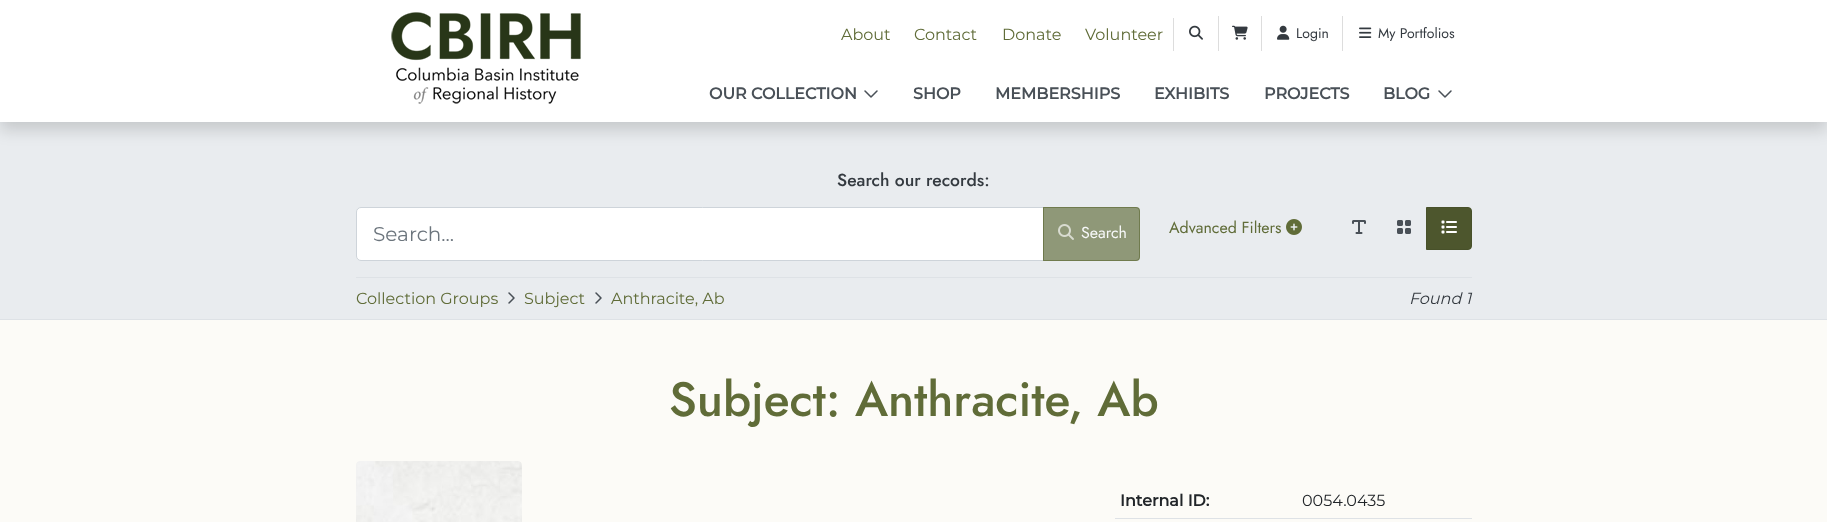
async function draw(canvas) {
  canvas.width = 1827
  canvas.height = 522
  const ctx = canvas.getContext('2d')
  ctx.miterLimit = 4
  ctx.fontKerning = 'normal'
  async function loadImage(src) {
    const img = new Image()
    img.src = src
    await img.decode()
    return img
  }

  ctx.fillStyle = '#fcfbf7'
  ctx.fillRect(0, 0, 1827, 522)
  ctx.fillStyle = '#e9ecef'
  ctx.fillRect(0, 122, 1827, 197)
  ctx.fillStyle = '#00000026'
  ctx.filter = 'blur(8px)'
  ctx.beginPath()
  ctx.rect(0, 8, 1827, 122)
  ctx.fill()
  ctx.filter = 'none'
  ctx.fillStyle = '#fff'
  ctx.fillRect(0, 0, 1827, 122)
  ctx.drawImage(await loadImage('image0.png'), 391, 12, 190, 92)
  ctx.fillStyle = '#ddd'
  ctx.fillRect(1173, 18, 1, 33)
  ctx.font = '16px Montserrat'
  ctx.fillStyle = '#606c38'
  ctx.fillText('About', 841, 40)
  ctx.fillText('Contact', 914, 40)
  ctx.fillText('Donate', 1002, 40)
  ctx.fillText('Volunteer', 1085, 40)
  ctx.fillStyle = '#ddd'
  ctx.fillRect(1218, 16, 1, 35)
  ctx.drawImage(await loadImage('image1.png'), 1189, 25, 14, 15)
  ctx.fillRect(1261, 16, 1, 35)
  ctx.drawImage(await loadImage('image2.png'), 1232, 25, 16, 15)
  ctx.fillRect(1342, 16, 1, 35)
  ctx.drawImage(await loadImage('image3.png'), 1277, 25, 13, 15)
  ctx.font = '14px Jost'
  ctx.fillStyle = '#343a40'
  ctx.fillText('Login', 1296, 38)
  ctx.drawImage(await loadImage('image4.png'), 1359, 27, 13, 11)
  ctx.fillText('My Portfolios', 1378, 38)
  ctx.font = 'bold 16px Montserrat'
  ctx.fillStyle = '#495057'
  ctx.fillText('OUR COLLECTION', 709, 99)
  ctx.drawImage(await loadImage('image5.png'), 864, 90, 14, 8)
  ctx.fillText('SHOP', 913, 99)
  ctx.fillText('MEMBERSHIPS', 995, 99)
  ctx.fillText('EXHIBITS', 1154, 99)
  ctx.fillText('PROJECTS', 1264, 99)
  ctx.fillText('BLOG', 1383, 99)
  ctx.drawImage(await loadImage('image5.png'), 1438, 90, 14, 8)
  ctx.fillStyle = '#dee2e6'
  ctx.fillRect(0, 319, 1827, 1)
  ctx.font = '500 17.5px Jost'
  ctx.fillStyle = '#343a40'
  ctx.fillText('Search our records:', 837, 186)
  ctx.fillStyle = '#fff'
  ctx.beginPath()
  ctx.roundRect(356.5, 207.5, 687, 53, [4.5, 0, 0, 4.5])
  ctx.fill()
  ctx.strokeStyle = '#ced4da'
  ctx.stroke()
  ctx.font = '20px Montserrat'
  ctx.fillStyle = '#6c757d'
  ctx.fillText('Search...', 373, 241)
  ctx.fillStyle = '#606c38a6'
  ctx.beginPath()
  ctx.roundRect(1043, 207, 97, 54, [0, 4, 4, 0])
  ctx.fill()
  ctx.beginPath()
  ctx.roundRect(1043.5, 207.5, 96, 53, [0, 3.5, 3.5, 0])
  ctx.strokeStyle = '#606c38a6'
  ctx.stroke()
  ctx.drawImage(await loadImage('image6.png'), 1058, 224, 16, 16)
  ctx.font = '16px Jost'
  ctx.fillStyle = '#f7f8f9'
  ctx.fillText('Search', 1081, 238)
  ctx.fillStyle = '#606c38'
  ctx.fillText('Advanced Filters', 1169, 233)
  ctx.drawImage(await loadImage('image7.png'), 1286, 219, 16, 16)
  ctx.drawImage(await loadImage('image8.png'), 1352, 220, 14, 14)
  ctx.drawImage(await loadImage('image9.png'), 1397, 220, 14, 14)
  ctx.fillStyle = '#4d562d'
  ctx.beginPath()
  ctx.roundRect(1426.5, 207.5, 45, 42, [0, 3.5, 3.5, 0])
  ctx.fill()
  ctx.strokeStyle = '#48512a'
  ctx.stroke()
  ctx.drawImage(await loadImage('image10.png'), 1441, 220, 16, 14)
  ctx.fillStyle = '#dee2e6'
  ctx.fillRect(356, 277, 1116, 1)
  ctx.font = '16px Montserrat'
  ctx.fillStyle = '#606c38'
  ctx.fillText('Collection Groups', 356, 304)
  ctx.drawImage(await loadImage('image11.png'), 508, 292, 7, 12)
  ctx.fillText('Subject', 524, 304)
  ctx.drawImage(await loadImage('image11.png'), 595, 292, 7, 12)
  ctx.fillText('Anthracite, Ab', 611, 304)
  ctx.font = 'italic 16px Montserrat'
  ctx.fillStyle = '#343a40'
  ctx.fillText('Found 1', 1409, 304)
  ctx.font = '500 48px Jost'
  ctx.fillStyle = '#606c38'
  ctx.fillText('Subject: Anthracite, Ab', 669, 416)
  ctx.drawImage(await loadImage('image12.png'), 356, 461, 166, 61)
  ctx.font = 'bold 16px Montserrat'
  ctx.fillStyle = '#212529'
  ctx.fillText('Internal ID:', 1120, 506)
  ctx.fillStyle = '#dee2e6'
  ctx.fillRect(1115, 518, 357, 1)
  ctx.font = '16px Montserrat'
  ctx.fillStyle = '#212529'
  ctx.fillText('0054.0435', 1302, 506)
}

draw(document.querySelector('canvas'))
